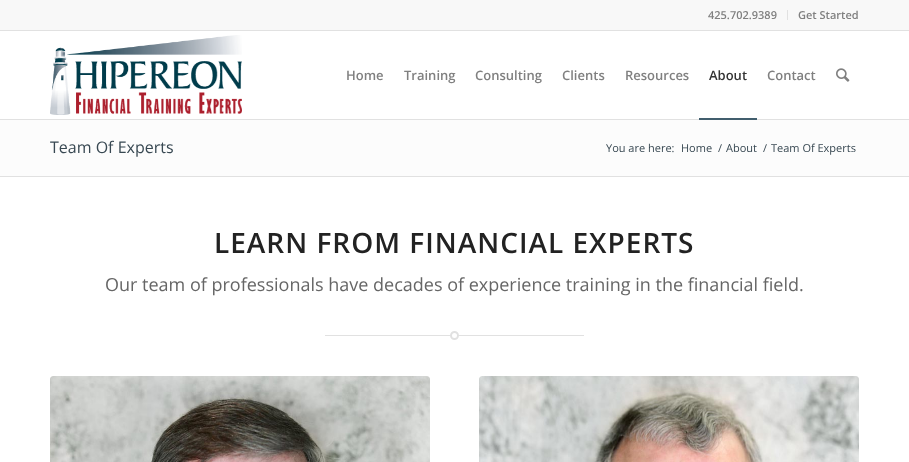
async function draw(canvas) {
  canvas.width = 909
  canvas.height = 462
  const ctx = canvas.getContext('2d')
  ctx.miterLimit = 4
  ctx.fontKerning = 'normal'
  async function loadImage(src) {
    const img = new Image()
    img.src = src
    await img.decode()
    return img
  }

  ctx.fillStyle = '#fff'
  ctx.fillRect(0, 0, 909, 462)
  ctx.fillStyle = '#f8f8f8'
  ctx.fillRect(0, 0, 909, 30)
  ctx.fillStyle = '#e1e1e1'
  ctx.fillRect(0, 30, 909, 1)
  ctx.fillRect(787, 10, 1, 10)
  ctx.font = '600 11px Open Sans'
  ctx.fillStyle = '#808080'
  ctx.fillText('425.702.9389', 708, 19)
  ctx.fillText('Get Started', 798, 19)
  ctx.fillStyle = '#e1e1e1'
  ctx.fillRect(0, 119, 909, 1)
  ctx.drawImage(await loadImage('image0.png'), 50, 35, 192, 80)
  ctx.font = '600 13px Open Sans'
  ctx.fillStyle = '#808080'
  ctx.fillText('Home', 346, 80)
  ctx.fillText('Training', 404, 80)
  ctx.fillText('Consulting', 475, 80)
  ctx.fillText('Clients', 562, 80)
  ctx.fillText('Resources', 625, 80)
  ctx.fillStyle = '#333'
  ctx.fillText('About', 709, 80)
  ctx.fillStyle = '#415e6d'
  ctx.fillRect(699, 118, 58, 2)
  ctx.fillStyle = '#808080'
  ctx.fillText('Contact', 767, 80)
  ctx.drawImage(await loadImage('image1.png'), 836, 68, 14, 14)
  ctx.fillStyle = '#fcfcfc'
  ctx.fillRect(0, 120, 909, 56)
  ctx.font = '16px Open Sans'
  ctx.fillStyle = '#384852'
  ctx.fillText('Team Of Experts', 50, 153)
  ctx.font = '11px Open Sans'
  ctx.fillText('You are here:', 606, 152)
  ctx.fillText('Home', 681, 152)
  ctx.fillText('/', 718, 152)
  ctx.fillText('About', 726, 152)
  ctx.fillText('/', 763, 152)
  ctx.fillText('Team Of Experts', 771, 152)
  ctx.fillStyle = '#e1e1e1'
  ctx.fillRect(0, 176, 909, 1)
  ctx.letterSpacing = '1px'
  ctx.font = '600 28px Open Sans'
  ctx.fillStyle = '#222'
  ctx.fillText('LEARN FROM FINANCIAL EXPERTS', 214, 253)
  ctx.letterSpacing = '0px'
  ctx.font = '18px Open Sans'
  ctx.fillStyle = '#666'
  ctx.fillText('Our team of professionals have decades of experience training in the financial field.', 105, 291)
  ctx.fillStyle = '#e1e1e1'
  ctx.fillRect(325, 335, 259, 1)
  ctx.fillStyle = '#fff'
  ctx.beginPath()
  ctx.arc(454.5, 335.5, 3.5, 0, 2 * Math.PI)
  ctx.fill()
  ctx.strokeStyle = '#e1e1e1'
  ctx.lineWidth = 2
  ctx.stroke()
  ctx.drawImage(await loadImage('image2.png'), 50, 376, 380, 86)
  ctx.drawImage(await loadImage('image3.png'), 479, 376, 380, 86)
}

draw(document.querySelector('canvas'))
